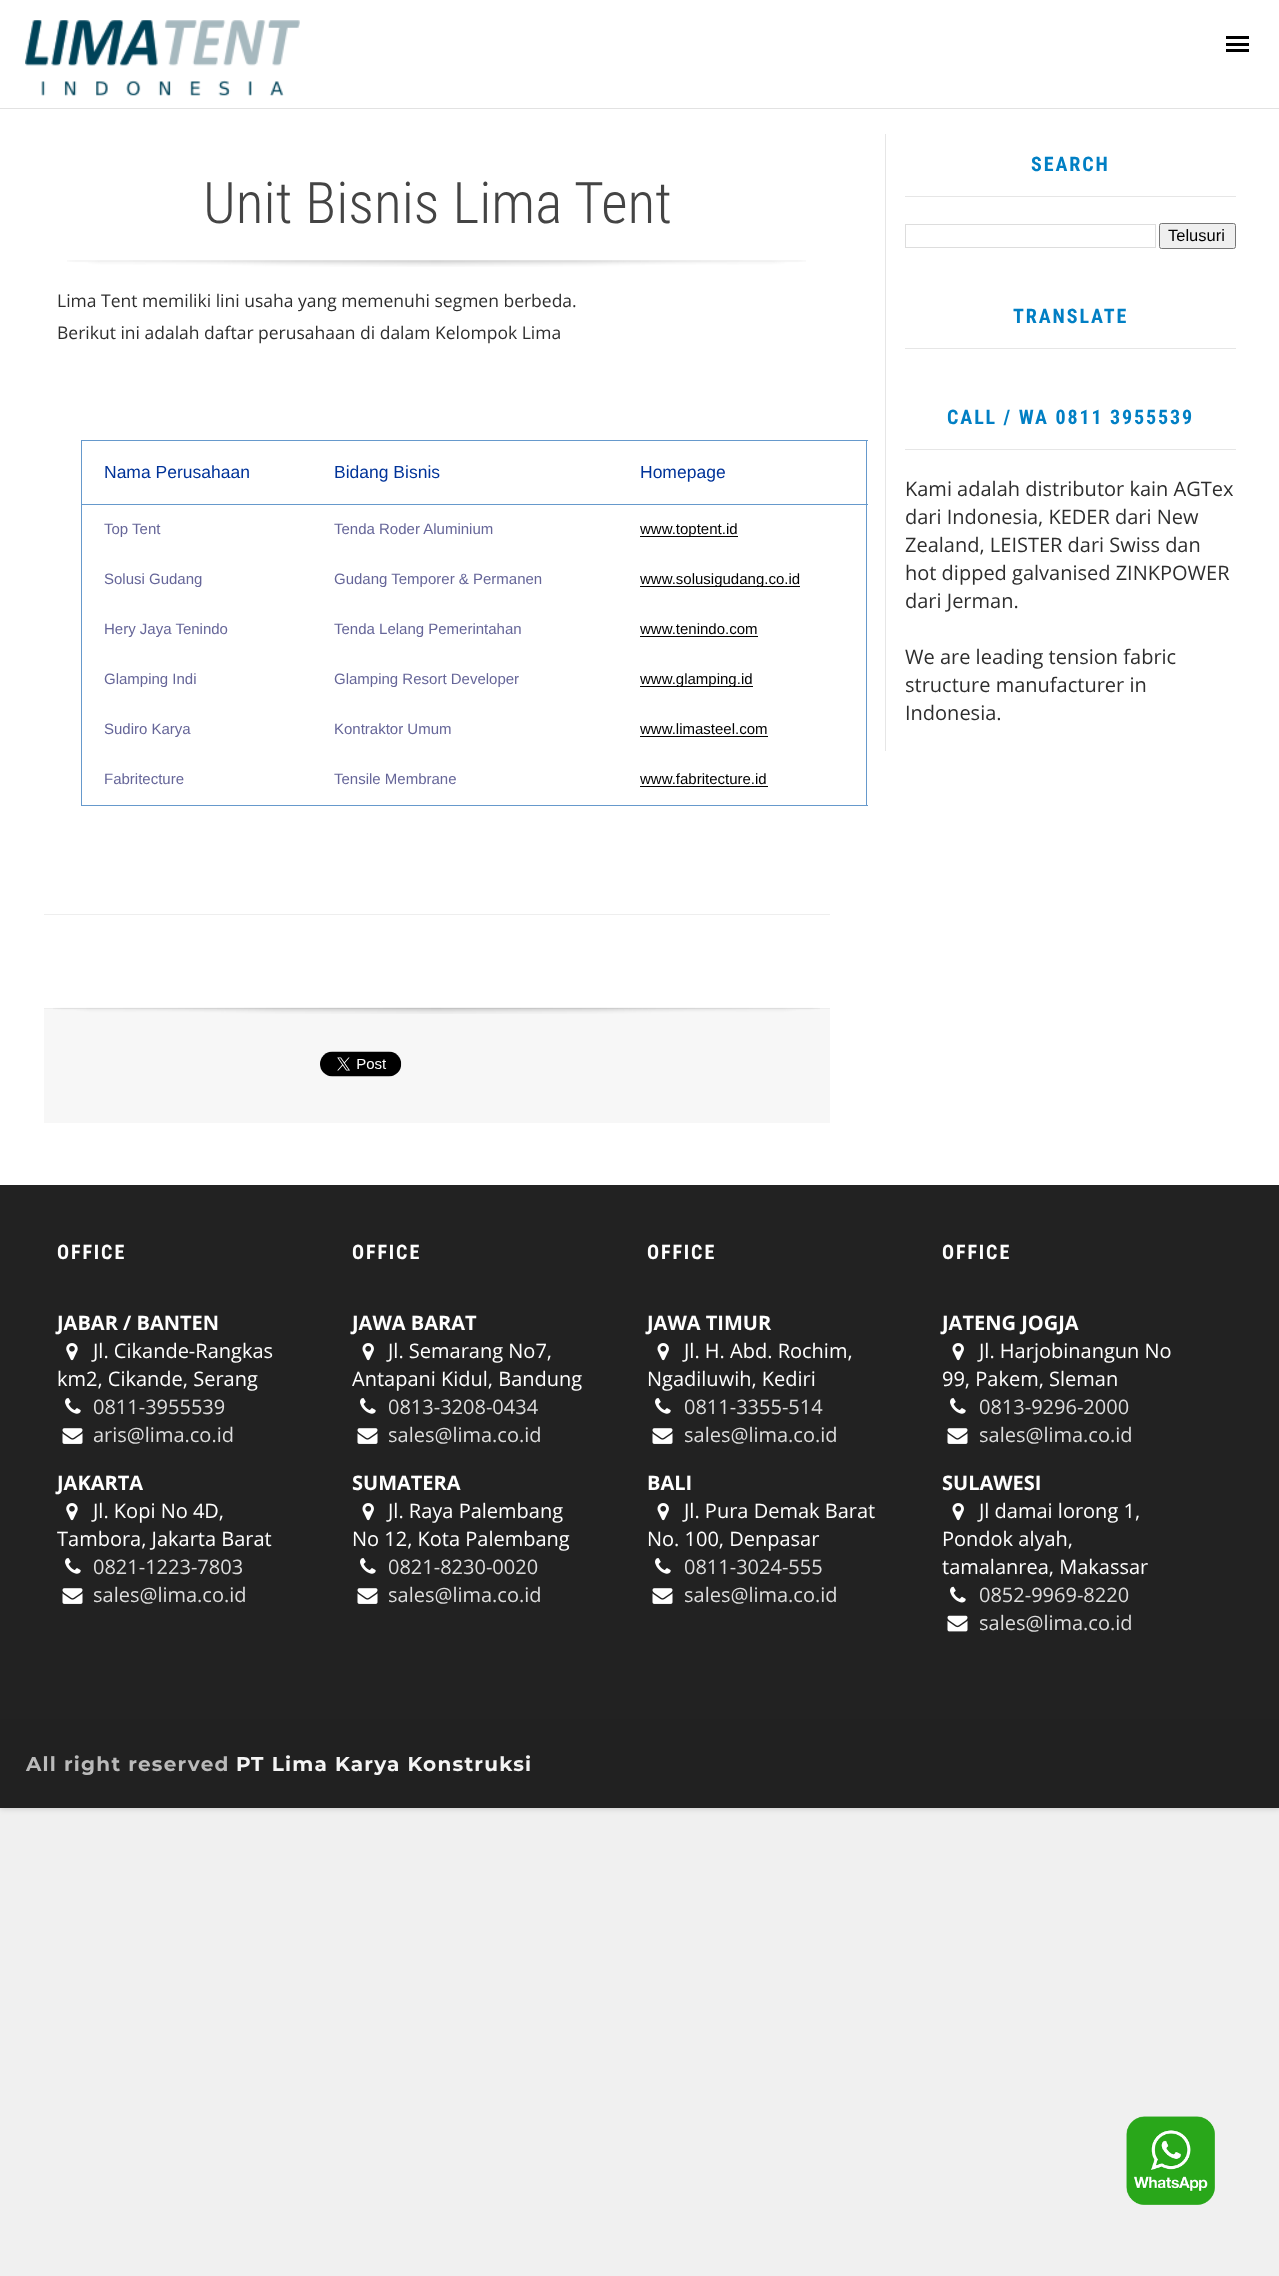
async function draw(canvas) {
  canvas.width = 1279
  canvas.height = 2276
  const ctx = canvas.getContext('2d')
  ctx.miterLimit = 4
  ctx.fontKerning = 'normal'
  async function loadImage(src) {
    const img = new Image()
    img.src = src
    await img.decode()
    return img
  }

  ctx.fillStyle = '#f0f0f0'
  ctx.fillRect(0, 0, 1279, 2276)
  ctx.fillStyle = '#00000033'
  ctx.filter = 'blur(3px)'
  ctx.beginPath()
  ctx.rect(0, -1, 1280, 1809)
  ctx.fill()
  ctx.filter = 'none'
  ctx.fillStyle = '#fff'
  ctx.fillRect(0, 0, 1279, 1185)
  ctx.fillStyle = '#e2e2e2'
  ctx.fillRect(0, 108, 1279, 1)
  ctx.drawImage(await loadImage('image0.png'), 25, 20, 275, 76)
  ctx.fillStyle = '#000'
  ctx.fillRect(1226, 36, 23, 3)
  ctx.fillRect(1226, 43, 23, 3)
  ctx.fillRect(1226, 49, 23, 3)
  ctx.font = '300 57.5px Roboto Condensed'
  ctx.fillStyle = '#444'
  ctx.fillText('Unit Bisnis Lima Tent', 203, 223)
  ctx.drawImage(await loadImage('image1.png'), 67, 260, 739, 7)
  ctx.font = '17.5px Open Sans'
  ctx.fillStyle = '#2e2e2e'
  ctx.fillText('Lima Tent memiliki lini usaha yang memenuhi segmen berbeda.', 57, 307)
  ctx.fillText('Berikut ini adalah daftar perusahaan di dalam Kelompok Lima', 57, 339)
  ctx.fillStyle = '#69c'
  ctx.fillRect(81, 440, 787, 1)
  ctx.fillRect(866, 440, 1, 366)
  ctx.fillRect(81, 805, 787, 1)
  ctx.fillRect(81, 440, 1, 366)
  ctx.font = '17.5px Liberation Sans'
  ctx.fillStyle = '#039'
  ctx.fillText('Nama Perusahaan', 104, 478)
  ctx.fillText('Bidang Bisnis', 334, 478)
  ctx.fillStyle = '#69c'
  ctx.fillRect(81, 504, 787, 1)
  ctx.fillStyle = '#039'
  ctx.fillText('Homepage', 640, 478)
  ctx.font = '15px Liberation Sans'
  ctx.fillStyle = '#669'
  ctx.fillText('Top Tent', 104, 534)
  ctx.fillText('Tenda Roder Aluminium', 334, 534)
  ctx.fillStyle = '#000'
  ctx.fillRect(640, 536, 98, 1)
  ctx.fillText('www.toptent.id', 640, 534)
  ctx.fillStyle = '#669'
  ctx.fillText('Solusi Gudang', 104, 584)
  ctx.fillText('Gudang Temporer & Permanen', 334, 584)
  ctx.fillStyle = '#000'
  ctx.fillRect(640, 586, 160, 1)
  ctx.fillText('www.solusigudang.co.id', 640, 584)
  ctx.fillStyle = '#669'
  ctx.fillText('Hery Jaya Tenindo', 104, 634)
  ctx.fillText('Tenda Lelang Pemerintahan', 334, 634)
  ctx.fillStyle = '#000'
  ctx.fillText('www.tenindo.com', 640, 634)
  ctx.fillRect(640, 636, 118, 1)
  ctx.fillStyle = '#669'
  ctx.fillText('Glamping Indi', 104, 684)
  ctx.fillText('Glamping Resort Developer', 334, 684)
  ctx.fillStyle = '#000'
  ctx.fillRect(640, 686, 113, 1)
  ctx.fillText('www.glamping.id', 640, 684)
  ctx.fillStyle = '#669'
  ctx.fillText('Sudiro Karya', 104, 734)
  ctx.fillText('Kontraktor Umum', 334, 734)
  ctx.fillStyle = '#000'
  ctx.fillText('www.limasteel.com', 640, 734)
  ctx.fillRect(640, 736, 128, 1)
  ctx.fillStyle = '#669'
  ctx.fillText('Fabritecture', 104, 784)
  ctx.fillText('Tensile Membrane', 334, 784)
  ctx.fillStyle = '#000'
  ctx.fillText('www.fabritecture.id', 640, 784)
  ctx.fillRect(640, 786, 128, 1)
  ctx.fillStyle = '#eee'
  ctx.fillRect(44, 914, 786, 1)
  ctx.fillStyle = '#f7f7f7'
  ctx.fillRect(44, 1009, 786, 114)
  ctx.fillStyle = '#eee'
  ctx.fillRect(44, 1008, 786, 1)
  ctx.drawImage(await loadImage('image2.png'), 53, 1007, 767, 7)
  ctx.drawImage(await loadImage('image3.png'), 320, 1051, 82, 26)
  ctx.fillStyle = '#e6e6e6'
  ctx.fillRect(885, 134, 1, 617)
  ctx.fillRect(905, 196, 331, 1)
  ctx.letterSpacing = '1.9px'
  ctx.font = 'bold 20px Roboto Condensed'
  ctx.fillStyle = '#017fc4'
  ctx.fillText('SEARCH', 1031, 171)
  ctx.strokeStyle = '#ddd'
  ctx.strokeRect(905.5, 224.5, 250, 23)
  ctx.fillStyle = '#efefef'
  ctx.beginPath()
  ctx.roundRect(1159.5, 223.5, 76, 25, 2)
  ctx.fill()
  ctx.strokeStyle = '#767676'
  ctx.stroke()
  ctx.letterSpacing = '0px'
  ctx.font = '16.5px Liberation Sans'
  ctx.fillStyle = '#000'
  ctx.fillText('Telusuri', 1168, 241)
  ctx.fillStyle = '#e6e6e6'
  ctx.fillRect(905, 348, 331, 1)
  ctx.letterSpacing = '1.9px'
  ctx.font = 'bold 20px Roboto Condensed'
  ctx.fillStyle = '#017fc4'
  ctx.fillText('TRANSLATE', 1013, 323)
  ctx.fillStyle = '#e6e6e6'
  ctx.fillRect(905, 449, 331, 1)
  ctx.fillStyle = '#017fc4'
  ctx.fillText('CALL / WA 0811 3955539', 947, 424)
  ctx.letterSpacing = '0px'
  ctx.font = '20px Open Sans'
  ctx.fillStyle = '#2e2e2e'
  ctx.fillText('Kami adalah distributor kain AGTex', 905, 496)
  ctx.fillText('dari Indonesia, KEDER dari New', 905, 524)
  ctx.fillText('Zealand, LEISTER dari Swiss dan', 905, 552)
  ctx.fillText('hot dipped galvanised ZINKPOWER', 905, 580)
  ctx.fillText('dari Jerman.', 905, 608)
  ctx.fillText('We are leading tension fabric', 905, 664)
  ctx.fillText('structure manufacturer in', 905, 692)
  ctx.fillText('Indonesia.', 905, 720)
  ctx.fillStyle = '#222'
  ctx.fillRect(0, 1185, 1279, 534)
  ctx.letterSpacing = '1.9px'
  ctx.font = 'bold 20px Roboto Condensed'
  ctx.fillStyle = '#fff'
  ctx.fillText('OFFICE', 57, 1259)
  ctx.letterSpacing = '0px'
  ctx.font = 'bold 20px Open Sans'
  ctx.fillText('JABAR / BANTEN', 57, 1330)
  ctx.drawImage(await loadImage('image4.png'), 66, 1343, 12, 18)
  ctx.font = '20px Open Sans'
  ctx.fillText('Jl. Cikande-Rangkas', 93, 1358)
  ctx.fillText('km2, Cikande, Serang', 57, 1386)
  ctx.drawImage(await loadImage('image5.png'), 65, 1398, 16, 16)
  ctx.fillStyle = '#ddd'
  ctx.fillText('0811-3955539', 93, 1414)
  ctx.drawImage(await loadImage('image6.png'), 62, 1428, 21, 16)
  ctx.fillText('aris@lima.co.id', 93, 1442)
  ctx.font = 'bold 20px Open Sans'
  ctx.fillStyle = '#fff'
  ctx.fillText('JAKARTA', 57, 1490)
  ctx.drawImage(await loadImage('image4.png'), 66, 1503, 12, 18)
  ctx.font = '20px Open Sans'
  ctx.fillText('Jl. Kopi No 4D,', 93, 1518)
  ctx.fillText('Tambora, Jakarta Barat', 57, 1546)
  ctx.drawImage(await loadImage('image5.png'), 65, 1558, 16, 16)
  ctx.fillStyle = '#ddd'
  ctx.fillText('0821-1223-7803', 93, 1574)
  ctx.drawImage(await loadImage('image6.png'), 62, 1588, 21, 16)
  ctx.fillText('sales@lima.co.id', 93, 1602)
  ctx.letterSpacing = '1.9px'
  ctx.font = 'bold 20px Roboto Condensed'
  ctx.fillStyle = '#fff'
  ctx.fillText('OFFICE', 352, 1259)
  ctx.letterSpacing = '0px'
  ctx.font = 'bold 20px Open Sans'
  ctx.fillText('JAWA BARAT', 352, 1330)
  ctx.drawImage(await loadImage('image7.png'), 362, 1343, 12, 18)
  ctx.font = '20px Open Sans'
  ctx.fillText('Jl. Semarang No7,', 388, 1358)
  ctx.fillText('Antapani Kidul, Bandung', 352, 1386)
  ctx.drawImage(await loadImage('image5.png'), 360, 1398, 16, 16)
  ctx.fillStyle = '#ddd'
  ctx.fillText('0813-3208-0434', 388, 1414)
  ctx.drawImage(await loadImage('image6.png'), 357, 1428, 21, 16)
  ctx.fillText('sales@lima.co.id', 388, 1442)
  ctx.font = 'bold 20px Open Sans'
  ctx.fillStyle = '#fff'
  ctx.fillText('SUMATERA', 352, 1490)
  ctx.drawImage(await loadImage('image7.png'), 362, 1503, 12, 18)
  ctx.font = '20px Open Sans'
  ctx.fillText('Jl. Raya Palembang', 388, 1518)
  ctx.fillText('No 12, Kota Palembang', 352, 1546)
  ctx.drawImage(await loadImage('image5.png'), 360, 1558, 16, 16)
  ctx.fillStyle = '#ddd'
  ctx.fillText('0821-8230-0020', 388, 1574)
  ctx.drawImage(await loadImage('image6.png'), 357, 1588, 21, 16)
  ctx.fillText('sales@lima.co.id', 388, 1602)
  ctx.letterSpacing = '1.9px'
  ctx.font = 'bold 20px Roboto Condensed'
  ctx.fillStyle = '#fff'
  ctx.fillText('OFFICE', 647, 1259)
  ctx.letterSpacing = '0px'
  ctx.font = 'bold 20px Open Sans'
  ctx.fillText('JAWA TIMUR', 647, 1330)
  ctx.drawImage(await loadImage('image7.png'), 657, 1343, 12, 18)
  ctx.font = '20px Open Sans'
  ctx.fillText('Jl. H. Abd. Rochim,', 684, 1358)
  ctx.fillText('Ngadiluwih, Kediri', 647, 1386)
  ctx.drawImage(await loadImage('image5.png'), 655, 1398, 16, 16)
  ctx.fillStyle = '#ddd'
  ctx.fillText('0811-3355-514', 684, 1414)
  ctx.drawImage(await loadImage('image6.png'), 652, 1428, 21, 16)
  ctx.fillText('sales@lima.co.id', 684, 1442)
  ctx.font = 'bold 20px Open Sans'
  ctx.fillStyle = '#fff'
  ctx.fillText('BALI', 647, 1490)
  ctx.drawImage(await loadImage('image7.png'), 657, 1503, 12, 18)
  ctx.font = '20px Open Sans'
  ctx.fillText('Jl. Pura Demak Barat', 684, 1518)
  ctx.fillText('No. 100, Denpasar', 647, 1546)
  ctx.drawImage(await loadImage('image5.png'), 655, 1558, 16, 16)
  ctx.fillStyle = '#ddd'
  ctx.fillText('0811-3024-555', 684, 1574)
  ctx.drawImage(await loadImage('image6.png'), 652, 1588, 21, 16)
  ctx.fillText('sales@lima.co.id', 684, 1602)
  ctx.letterSpacing = '1.9px'
  ctx.font = 'bold 20px Roboto Condensed'
  ctx.fillStyle = '#fff'
  ctx.fillText('OFFICE', 942, 1259)
  ctx.letterSpacing = '0px'
  ctx.font = 'bold 20px Open Sans'
  ctx.fillText('JATENG JOGJA', 942, 1330)
  ctx.drawImage(await loadImage('image7.png'), 952, 1343, 12, 18)
  ctx.font = '20px Open Sans'
  ctx.fillText('Jl. Harjobinangun No', 979, 1358)
  ctx.fillText('99, Pakem, Sleman', 942, 1386)
  ctx.drawImage(await loadImage('image5.png'), 950, 1398, 16, 16)
  ctx.fillStyle = '#ddd'
  ctx.fillText('0813-9296-2000', 979, 1414)
  ctx.drawImage(await loadImage('image6.png'), 947, 1428, 21, 16)
  ctx.fillText('sales@lima.co.id', 979, 1442)
  ctx.font = 'bold 20px Open Sans'
  ctx.fillStyle = '#fff'
  ctx.fillText('SULAWESI', 942, 1490)
  ctx.drawImage(await loadImage('image7.png'), 952, 1503, 12, 18)
  ctx.font = '20px Open Sans'
  ctx.fillText('Jl damai lorong 1,', 979, 1518)
  ctx.fillText('Pondok alyah,', 942, 1546)
  ctx.fillText('tamalanrea, Makassar', 942, 1574)
  ctx.drawImage(await loadImage('image8.png'), 950, 1586, 16, 17)
  ctx.fillStyle = '#ddd'
  ctx.fillText('0852-9969-8220', 979, 1602)
  ctx.drawImage(await loadImage('image9.png'), 947, 1615, 21, 17)
  ctx.fillText('sales@lima.co.id', 979, 1630)
  ctx.fillStyle = '#212121'
  ctx.fillRect(0, 1719, 1279, 89)
  ctx.letterSpacing = '1.25px'
  ctx.font = 'bold 20px Montserrat'
  ctx.fillStyle = '#bababa'
  ctx.fillText('All right reserved', 26, 1771)
  ctx.fillStyle = '#f4f4f4'
  ctx.fillText('PT Lima Karya Konstruksi', 236, 1771)
  ctx.drawImage(await loadImage('image10.png'), 1126, 2116, 89, 89)
}

draw(document.querySelector('canvas'))
